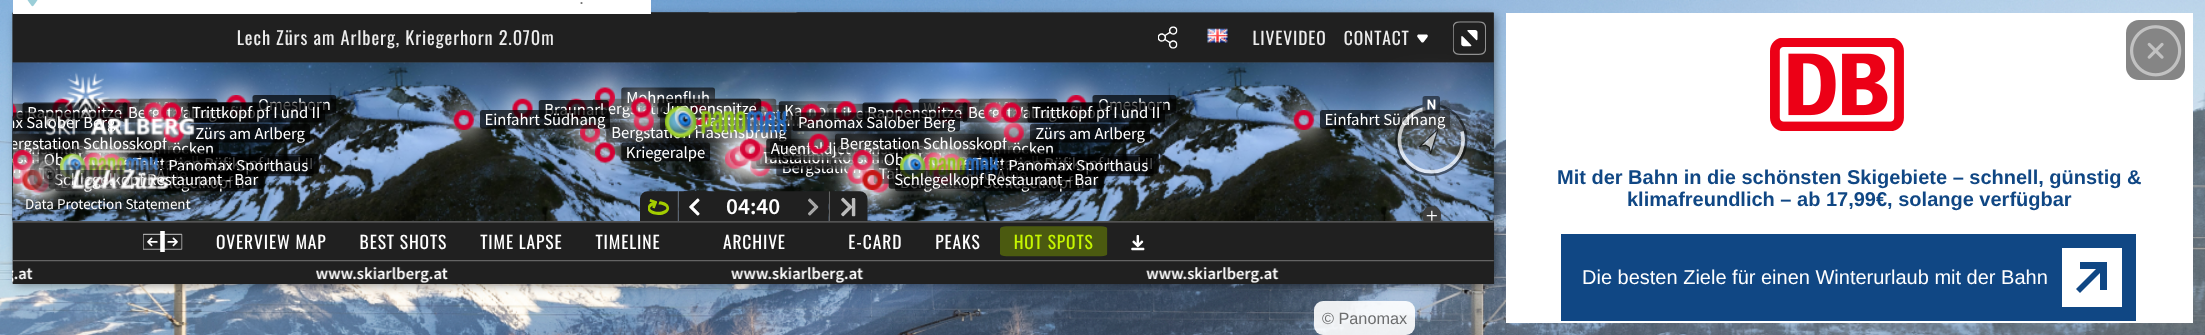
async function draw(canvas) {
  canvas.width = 2205
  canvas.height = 335
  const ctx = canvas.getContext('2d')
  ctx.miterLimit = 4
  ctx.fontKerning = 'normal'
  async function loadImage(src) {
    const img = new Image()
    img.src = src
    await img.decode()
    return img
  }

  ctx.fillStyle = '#fff'
  ctx.fillRect(0, 0, 2205, 335)
  ctx.drawImage(await loadImage('image0.png'), 0, 0, 2205, 335)
  ctx.fillRect(1506, 13, 687, 310)
  ctx.fillStyle = '#0000006e'
  ctx.filter = 'blur(5px)'
  ctx.beginPath()
  ctx.rect(16, 16, 1479, 269)
  ctx.fill()
  ctx.filter = 'none'
  ctx.drawImage(await loadImage('image2.png'), 12, 12, 1482, 272)
  ctx.drawImage(await loadImage('image3.png'), 12, 12, 1482, 272)
  ctx.fillStyle = '#fff'
  ctx.fillRect(13, 0, 638, 14)
  ctx.drawImage(await loadImage('image1.png'), 27, 0, 11, 7)
  ctx.font = '18px Liberation Sans'
  ctx.fillStyle = '#737373'
  ctx.fillText('.', 579, 4)
  ctx.fillStyle = '#ffffffe6'
  ctx.beginPath()
  ctx.roundRect(1314, 301, 101, 34, 9)
  ctx.fill()
  ctx.font = '16.25px Liberation Sans'
  ctx.fillStyle = '#6c6d6e'
  ctx.fillText('© Panomax', 1322, 324)
  ctx.fillStyle = '#858585'
  ctx.beginPath()
  ctx.roundRect(2126, 20, 59, 60, 13)
  ctx.fill()
  ctx.drawImage(await loadImage('image4.png'), 2130, 25, 52, 52)
  ctx.drawImage(await loadImage('image5.png'), 1770, 38, 134, 93)
  ctx.font = 'bold 20px Liberation Sans'
  ctx.fillStyle = '#104784'
  ctx.fillText('Mit der Bahn in die schönsten Skigebiete – schnell, günstig &', 1557, 184)
  ctx.fillText('klimafreundlich – ab 17,99€, solange verfügbar', 1627, 206)
  ctx.fillRect(1561, 234, 575, 87)
  ctx.font = '20px Liberation Sans'
  ctx.fillStyle = '#fff'
  ctx.fillText('Die besten Ziele für einen Winterurlaub mit der Bahn', 1582, 284)
  ctx.beginPath()
  ctx.moveTo(2062, 248)
  ctx.lineTo(2122, 248)
  ctx.lineTo(2062, 248)
  ctx.lineTo(2122, 248)
  ctx.lineTo(2122, 307)
  ctx.lineTo(2062, 307)
  ctx.closePath()
  ctx.moveTo(2104, 262)
  ctx.lineTo(2080, 262)
  ctx.lineTo(2080, 269)
  ctx.lineTo(2096, 269)
  ctx.lineTo(2076, 289)
  ctx.lineTo(2080, 293)
  ctx.lineTo(2100, 273)
  ctx.lineTo(2100, 290)
  ctx.lineTo(2107, 290)
  ctx.lineTo(2107, 262)
  ctx.closePath()
  ctx.fill()
}

draw(document.querySelector('canvas'))
